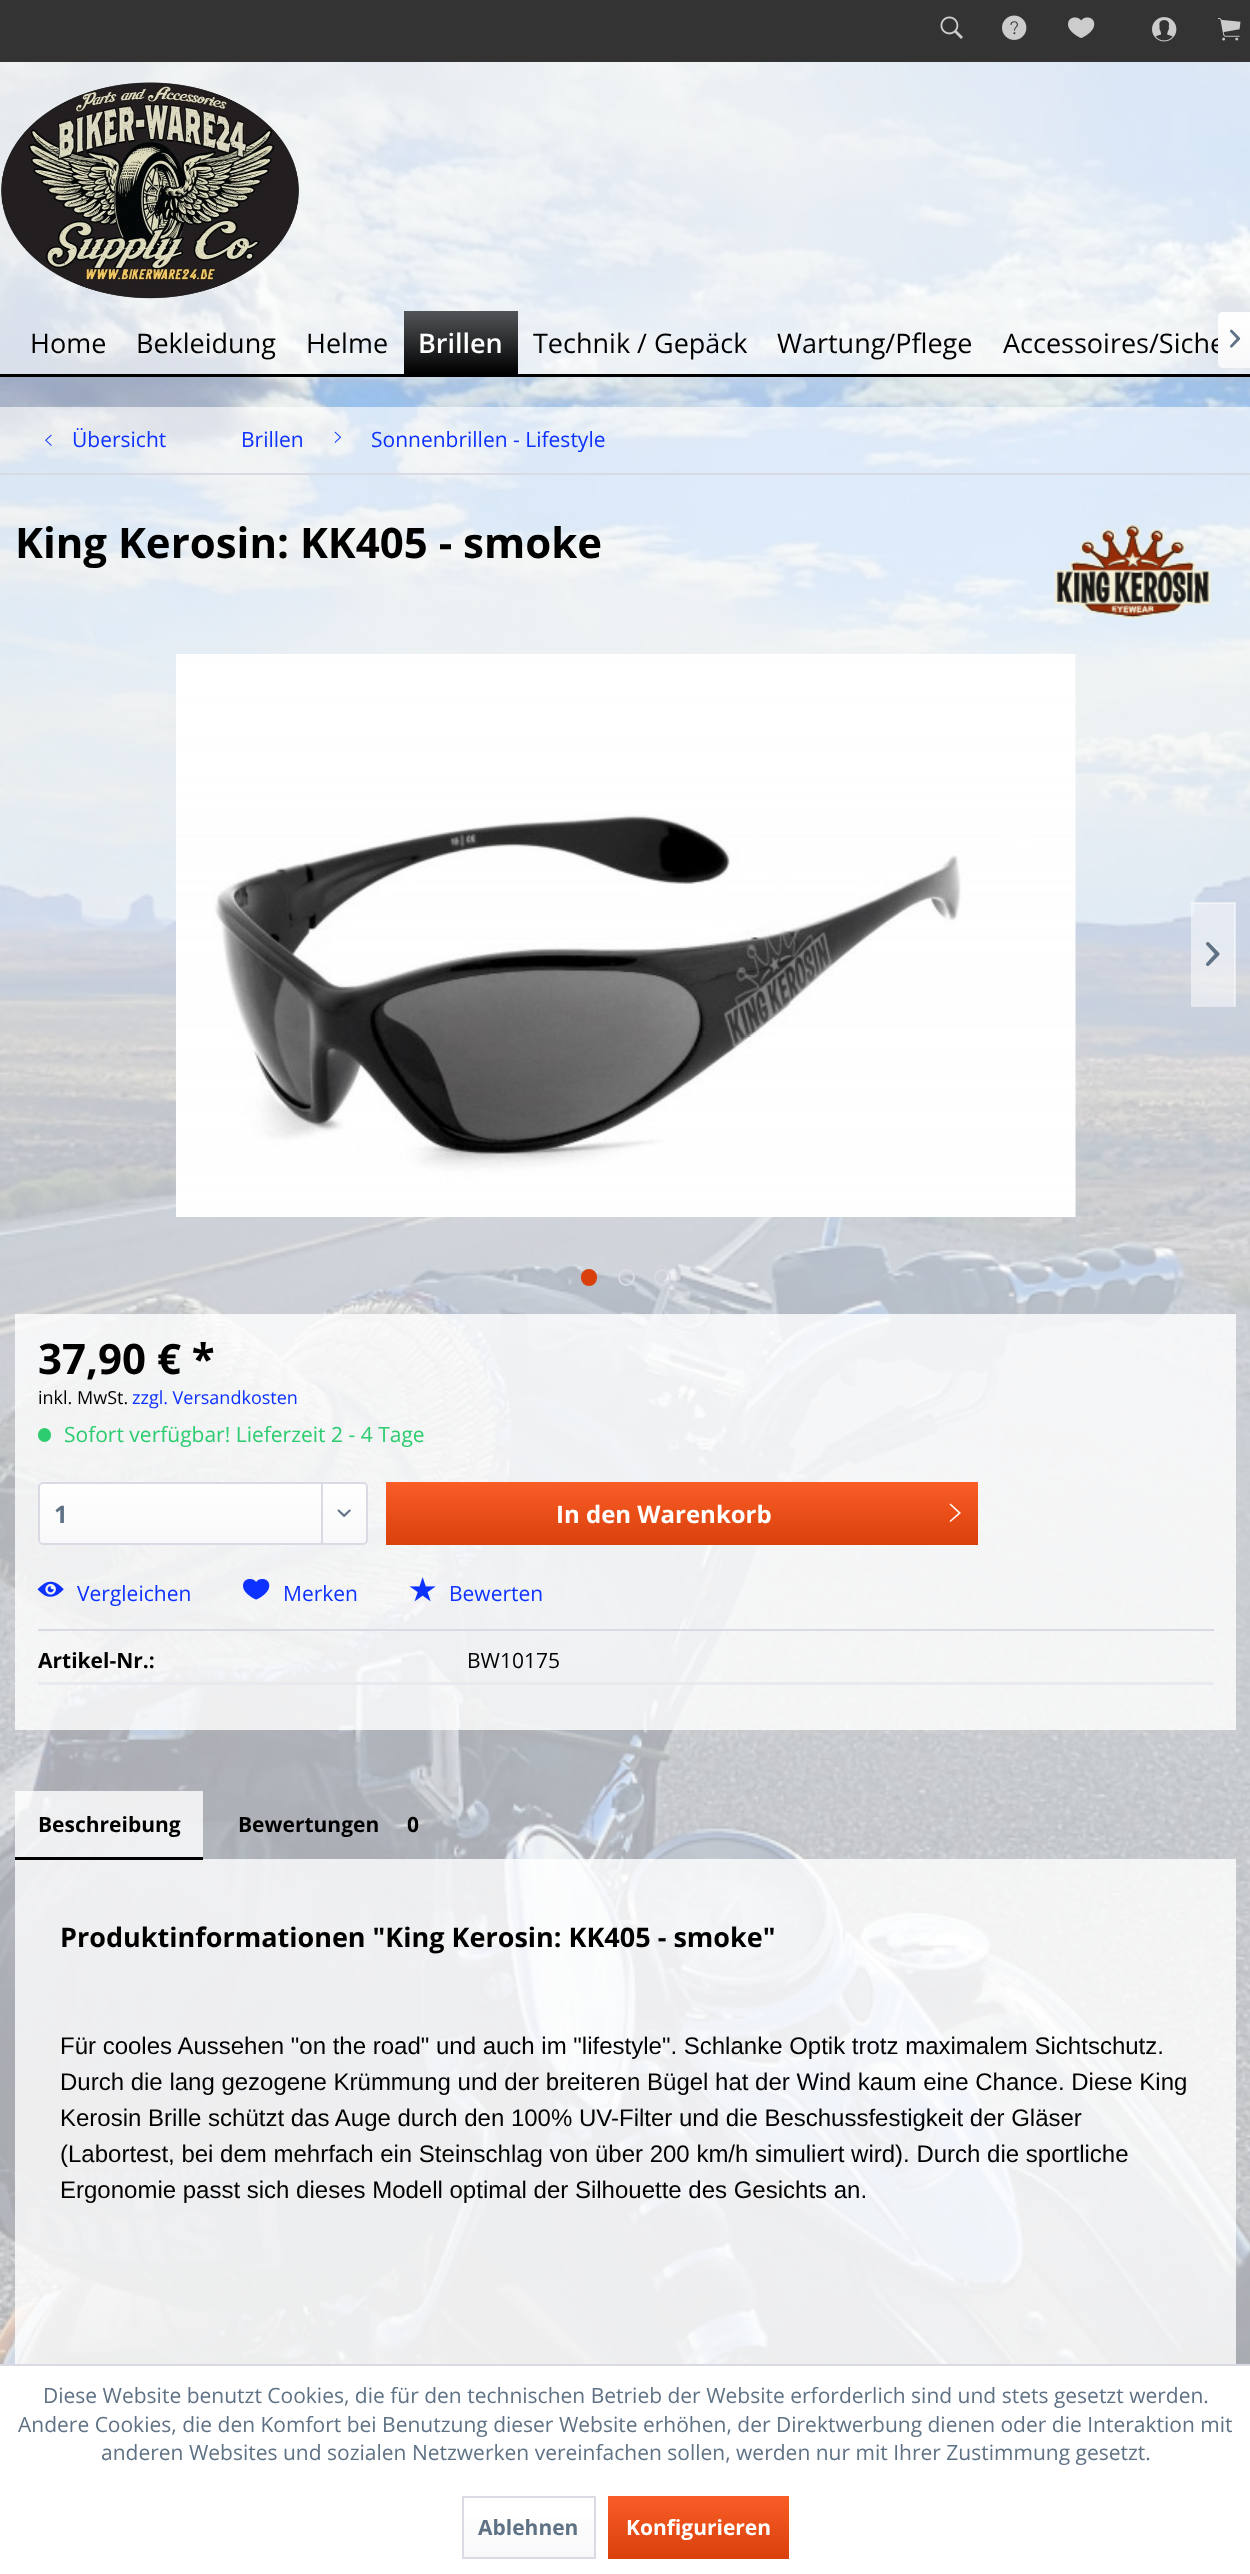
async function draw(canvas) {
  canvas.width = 1250
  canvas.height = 2574
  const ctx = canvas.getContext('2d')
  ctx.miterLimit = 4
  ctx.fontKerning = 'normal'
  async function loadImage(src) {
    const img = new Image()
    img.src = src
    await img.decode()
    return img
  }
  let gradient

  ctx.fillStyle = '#fff'
  ctx.fillRect(0, 0, 1250, 2574)
  ctx.drawImage(await loadImage('image0.png'), 0, 62, 1250, 2302)
  ctx.fillStyle = '#ffffffa1'
  ctx.fillRect(0, 62, 1250, 249)
  ctx.fillStyle = '#333'
  ctx.fillRect(0, 0, 1250, 62)
  ctx.drawImage(await loadImage('image1.png'), 940, 16, 23, 23)
  ctx.drawImage(await loadImage('image2.png'), 1002, 15, 25, 25)
  ctx.drawImage(await loadImage('image3.png'), 1068, 17, 27, 21)
  ctx.drawImage(await loadImage('image4.png'), 1152, 17, 25, 25)
  ctx.drawImage(await loadImage('image5.png'), 1218, 18, 23, 23)
  ctx.drawImage(await loadImage('image6.png'), 1, 82, 299, 217)
  ctx.fillStyle = '#ffffffa1'
  ctx.fillRect(0, 311, 1250, 63)
  ctx.fillStyle = '#000'
  ctx.fillRect(0, 374, 1250, 3)
  ctx.font = '27px Open Sans'
  ctx.fillText('Home', 30, 353)
  ctx.fillText('Bekleidung', 136, 353)
  ctx.fillText('Helme', 306, 353)
  gradient = ctx.createLinearGradient(461, 311, 461, 374)
  gradient.addColorStop(0, '#525558')
  gradient.addColorStop(1, '#000')
  ctx.fillStyle = gradient
  ctx.fillRect(404, 311, 114, 63)
  ctx.font = '600 27px Open Sans'
  ctx.fillStyle = '#fff'
  ctx.fillText('Brillen', 418, 353)
  ctx.font = '27px Open Sans'
  ctx.fillStyle = '#000'
  ctx.fillText('Technik / Gepäck', 533, 353)
  ctx.fillText('Wartung/Pflege', 777, 353)
  ctx.fillText('Accessoires/Siche', 1003, 353)
  gradient = ctx.createLinearGradient(1235, 312, 1235, 368)
  gradient.addColorStop(0, '#fff')
  gradient.addColorStop(1, '#f8f8fa')
  ctx.fillStyle = gradient
  ctx.beginPath()
  ctx.moveTo(1223, 312)
  ctx.lineTo(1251, 312)
  ctx.lineTo(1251, 368)
  ctx.lineTo(1223, 368)
  ctx.bezierCurveTo(1220, 368, 1218, 366, 1218, 363)
  ctx.lineTo(1218, 317)
  ctx.bezierCurveTo(1218, 314, 1220, 312, 1223, 312)
  ctx.closePath()
  ctx.fill()
  ctx.drawImage(await loadImage('image7.png'), 1230, 329, 11, 19)
  ctx.fillStyle = '#ffffffa1'
  ctx.fillRect(0, 407, 1250, 1957)
  ctx.fillStyle = '#dadae5'
  ctx.fillRect(0, 473, 1250, 2)
  ctx.drawImage(await loadImage('image8.png'), 45, 434, 7, 12)
  ctx.font = '21px Open Sans'
  ctx.fillStyle = '#0d31ff'
  ctx.fillText('Übersicht', 72, 447)
  ctx.fillText('Brillen', 241, 447)
  ctx.drawImage(await loadImage('image9.png'), 334, 431, 8, 12)
  ctx.fillText('Sonnenbrillen - Lifestyle', 371, 447)
  ctx.font = 'bold 42px Open Sans'
  ctx.fillStyle = '#000'
  ctx.fillText('King Kerosin: KK405 - smoke', 15, 558)
  ctx.drawImage(await loadImage('image10.png'), 1054, 524, 158, 95)
  ctx.drawImage(await loadImage('image11.png'), 176, 654, 900, 563)
  ctx.fillStyle = '#ffffff80'
  ctx.fillRect(1193, 903, 42, 102)
  ctx.strokeStyle = '#ffffff80'
  ctx.lineWidth = 2
  ctx.strokeRect(1192, 903, 43, 103)
  ctx.drawImage(await loadImage('image12.png'), 1206, 942, 14, 24)
  ctx.fillStyle = '#d9400b'
  ctx.beginPath()
  ctx.roundRect(582, 1270, 14, 15, 7)
  ctx.fill()
  ctx.strokeStyle = '#d9400b'
  ctx.stroke()
  ctx.beginPath()
  ctx.arc(626.5, 1277.5, 7.5, 0, 2 * Math.PI)
  ctx.strokeStyle = '#dadae5'
  ctx.stroke()
  ctx.beginPath()
  ctx.arc(662.5, 1277.5, 7.5, 0, 2 * Math.PI)
  ctx.stroke()
  ctx.fillStyle = '#ffffffcc'
  ctx.fillRect(15, 1314, 1221, 416)
  ctx.fillStyle = '#000'
  ctx.fillText('37,90 € *', 38, 1374)
  ctx.font = '18px Open Sans'
  ctx.fillText('inkl. MwSt.', 38, 1404)
  ctx.fillStyle = '#0d31ff'
  ctx.fillText('zzgl. Versandkosten', 132, 1404)
  ctx.fillStyle = '#2ecc71'
  ctx.beginPath()
  ctx.roundRect(38, 1428, 13, 14, 6.5)
  ctx.fill()
  ctx.font = '21px Open Sans'
  ctx.fillText('Sofort verfügbar! Lieferzeit 2 - 4 Tage', 64, 1442)
  gradient = ctx.createLinearGradient(203, 1484, 203, 1544)
  gradient.addColorStop(0, '#fff')
  gradient.addColorStop(1, '#f8f8fa')
  ctx.fillStyle = gradient
  ctx.beginPath()
  ctx.roundRect(39, 1484, 327, 60, 3)
  ctx.fill()
  ctx.beginPath()
  ctx.roundRect(39, 1483, 328, 61, 4)
  ctx.stroke()
  ctx.font = 'bold 24px Open Sans'
  ctx.fillStyle = '#5f7285'
  ctx.fillText('1', 54, 1523)
  ctx.fillStyle = '#dadae5'
  ctx.fillRect(321, 1484, 2, 60)
  ctx.drawImage(await loadImage('image13.png'), 337, 1509, 14, 8)
  gradient = ctx.createLinearGradient(682, 1482, 682, 1545)
  gradient.addColorStop(0, '#fa5d27')
  gradient.addColorStop(1, '#d9400b')
  ctx.fillStyle = gradient
  ctx.fillRect(386, 1482, 592, 63)
  ctx.fillStyle = '#fff'
  ctx.fillText('In den Warenkorb', 556, 1523)
  ctx.beginPath()
  ctx.moveTo(949.5, 1504.5)
  ctx.lineTo(950.5, 1503.5)
  ctx.lineTo(961, 1513)
  ctx.lineTo(950.5, 1522)
  ctx.lineTo(949.5, 1521)
  ctx.lineTo(958.5, 1513)
  ctx.closePath()
  ctx.fill()
  ctx.fillStyle = '#dadae5'
  ctx.fillRect(38, 1629, 1176, 2)
  ctx.drawImage(await loadImage('image14.png'), 37, 1581, 27, 16)
  ctx.font = '21px Open Sans'
  ctx.fillStyle = '#0d31ff'
  ctx.fillText('Vergleichen', 77, 1601)
  ctx.drawImage(await loadImage('image15.png'), 243, 1578, 27, 22)
  ctx.fillText('Merken', 283, 1601)
  ctx.drawImage(await loadImage('image16.png'), 409, 1577, 27, 25)
  ctx.fillText('Bewerten', 449, 1601)
  ctx.font = 'bold 21px Open Sans'
  ctx.fillStyle = '#000'
  ctx.fillText('Artikel-Nr.:', 38, 1668)
  ctx.font = '21px Open Sans'
  ctx.fillText('BW10175', 467, 1668)
  ctx.fillStyle = '#e9e9f0'
  ctx.fillRect(38, 1682, 1176, 3)
  ctx.fillStyle = '#ffffffcc'
  ctx.fillRect(15, 1791, 188, 66)
  ctx.fillRect(15, 1859, 1221, 505)
  ctx.fillStyle = '#000'
  ctx.fillRect(15, 1857, 188, 3)
  ctx.font = 'bold 21px Open Sans'
  ctx.fillText('Beschreibung', 38, 1832)
  ctx.fillText('Bewertungen', 238, 1832)
  ctx.fillText('0', 407, 1832)
  ctx.font = 'bold 27px Open Sans'
  ctx.fillText('Produktinformationen "King Kerosin: KK405 - smoke"', 60, 1947)
  ctx.font = '24px Liberation Sans'
  ctx.fillText('Für cooles Aussehen "on the road" und auch im "lifestyle". Schlanke Optik trotz maximalem Sichtschutz.', 60, 2054)
  ctx.fillText('Durch die lang gezogene Krümmung und der breiteren Bügel hat der Wind kaum eine Chance. Diese King', 60, 2090)
  ctx.fillText('Kerosin Brille schützt das Auge durch den 100% UV-Filter und die Beschussfestigkeit der Gläser', 60, 2126)
  ctx.fillText('(Labortest, bei dem mehrfach ein Steinschlag von über 200 km/h simuliert wird). Durch die sportliche', 60, 2162)
  ctx.fillText('Ergonomie passt sich dieses Modell optimal der Silhouette des Gesichts an.', 60, 2198)
  ctx.fillStyle = '#dadae5'
  ctx.fillRect(0, 2364, 1250, 2)
  ctx.font = '21px Open Sans'
  ctx.fillStyle = '#5f7285'
  ctx.fillText('Diese Website benutzt Cookies, die für den technischen Betrieb der Website erforderlich sind und stets gesetzt werden.', 43, 2403)
  ctx.fillText('Andere Cookies, die den Komfort bei Benutzung dieser Website erhöhen, der Direktwerbung dienen oder die Interaktion mit', 18, 2432)
  ctx.fillText('anderen Websites und sozialen Netzwerken vereinfachen sollen, werden nur mit Ihrer Zustimmung gesetzt.', 101, 2460)
  gradient = ctx.createLinearGradient(529, 2498, 529, 2558)
  gradient.addColorStop(0, '#fff')
  gradient.addColorStop(1, '#f8f8fa')
  ctx.fillStyle = gradient
  ctx.fillRect(464, 2519, 130, 38)
  ctx.strokeRect(463, 2497, 132, 61)
  ctx.font = 'bold 21px Open Sans'
  ctx.fillStyle = '#5f7285'
  ctx.fillText('Ablehnen', 478, 2535)
  gradient = ctx.createLinearGradient(698, 2496, 698, 2559)
  gradient.addColorStop(0, '#fa5d27')
  gradient.addColorStop(1, '#d9400b')
  ctx.fillStyle = gradient
  ctx.fillRect(608, 2496, 181, 63)
  ctx.fillStyle = '#fff'
  ctx.fillText('Konfigurieren', 626, 2535)
}

draw(document.querySelector('canvas'))
